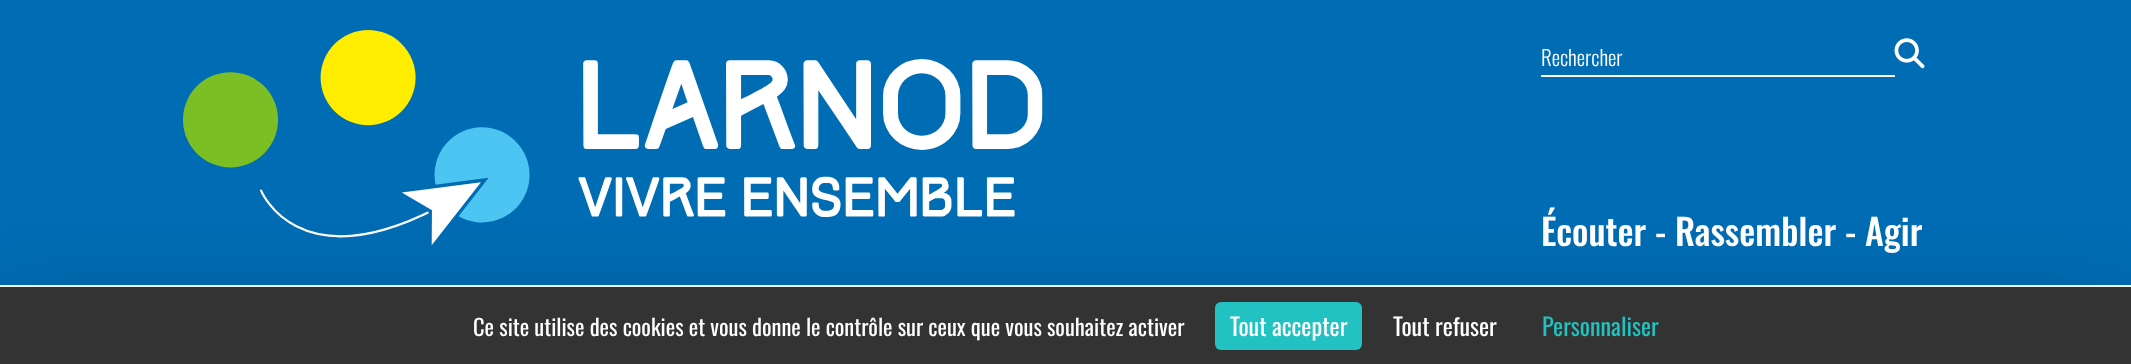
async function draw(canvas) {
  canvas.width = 2131
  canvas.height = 364
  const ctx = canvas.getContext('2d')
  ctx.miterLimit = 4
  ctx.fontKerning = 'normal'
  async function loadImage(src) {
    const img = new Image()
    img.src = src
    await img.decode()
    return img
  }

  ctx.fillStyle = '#006cb3'
  ctx.fillRect(0, 0, 2131, 364)
  ctx.drawImage(await loadImage('image0.png'), 183, 30, 860, 215)
  ctx.fillStyle = '#fff'
  ctx.fillRect(1541, 75, 354, 2)
  ctx.font = '300 21px Oswald'
  ctx.fillText('Rechercher', 1541, 66)
  ctx.drawImage(await loadImage('image1.png'), 1894, 38, 31, 31)
  ctx.font = '500 36px Oswald'
  ctx.fillText('Écouter - Rassembler - Agir', 1541, 246)
  ctx.fillRect(0, 285, 2131, 2)
  ctx.fillStyle = '#00000040'
  ctx.filter = 'blur(45px)'
  ctx.beginPath()
  ctx.rect(0, 317, 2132, 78)
  ctx.fill()
  ctx.filter = 'none'
  ctx.fillStyle = '#333'
  ctx.fillRect(0, 287, 2131, 77)
  ctx.font = '22.5px Oswald'
  ctx.fillStyle = '#fff'
  ctx.fillText('Ce site utilise des cookies et vous donne le contrôle sur ceux que vous souhaitez activer', 473, 336)
  ctx.fillStyle = '#23c2c2'
  ctx.beginPath()
  ctx.roundRect(1215, 302, 147, 48, 6)
  ctx.fill()
  ctx.font = '24px Oswald'
  ctx.fillStyle = '#fff'
  ctx.fillText('Tout accepter', 1230, 336)
  ctx.fillText('Tout refuser', 1393, 336)
  ctx.fillStyle = '#23c2c2'
  ctx.fillText('Personnaliser', 1542, 336)
}

draw(document.querySelector('canvas'))
